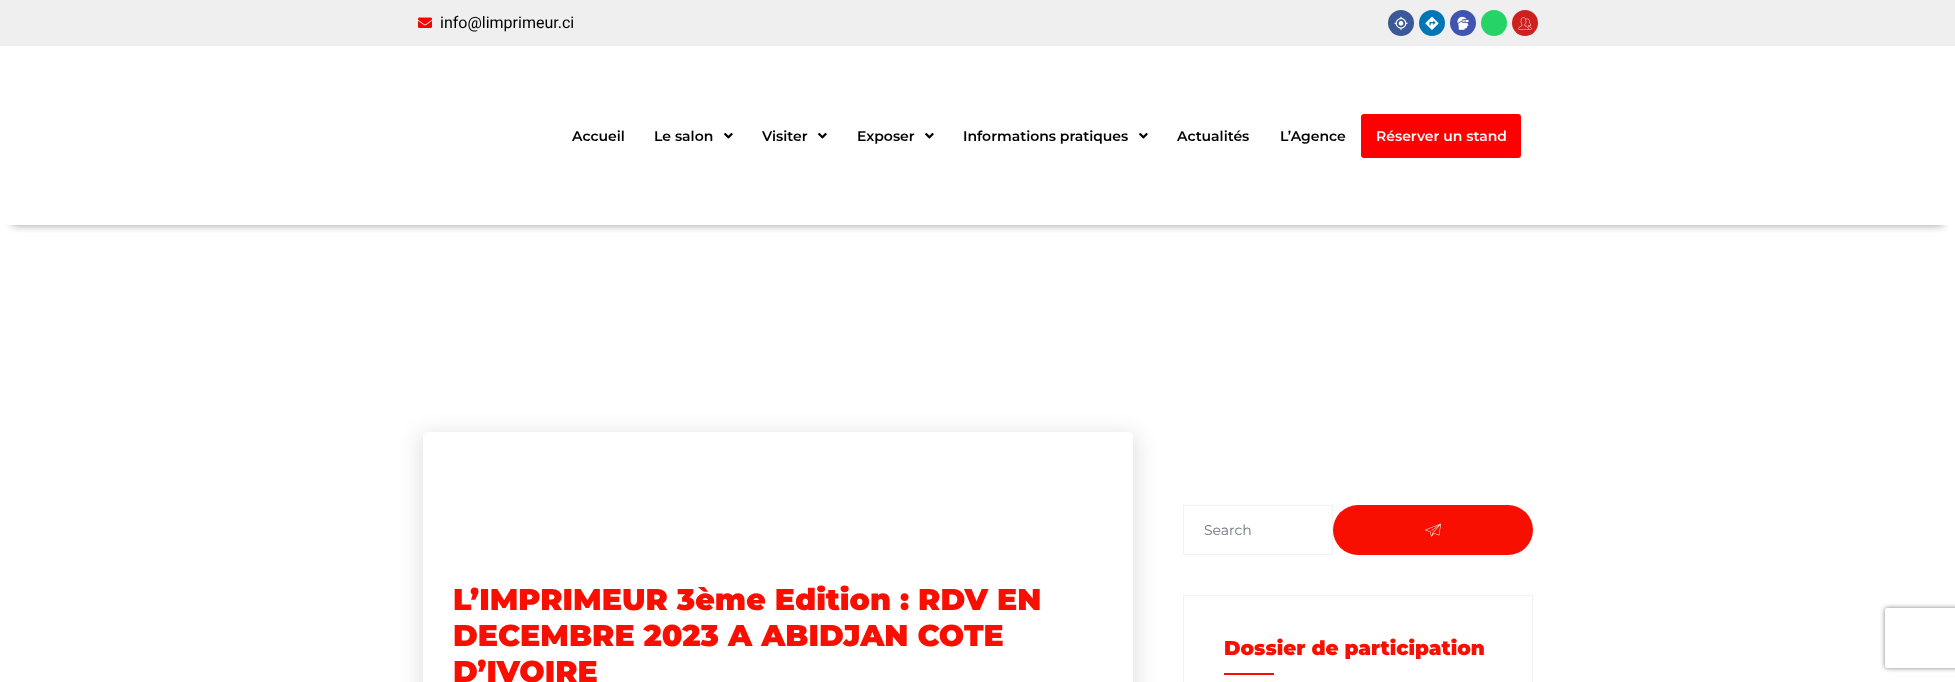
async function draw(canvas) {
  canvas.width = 1955
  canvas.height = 682
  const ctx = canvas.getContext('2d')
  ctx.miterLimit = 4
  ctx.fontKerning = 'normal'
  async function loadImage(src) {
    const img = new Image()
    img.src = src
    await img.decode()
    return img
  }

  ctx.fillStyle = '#fff'
  ctx.fillRect(0, 0, 1955, 682)
  ctx.fillStyle = '#efefef'
  ctx.fillRect(0, 0, 1955, 46)
  ctx.drawImage(await loadImage('image0.png'), 418, 17, 14, 11)
  ctx.font = '16px Roboto'
  ctx.fillStyle = '#000'
  ctx.fillText('info@limprimeur.ci', 440, 28)
  ctx.fillStyle = '#3b5998'
  ctx.beginPath()
  ctx.arc(1401, 23, 13, 0, 2 * Math.PI)
  ctx.fill()
  ctx.drawImage(await loadImage('image1.png'), 1394, 16, 14, 14)
  ctx.fillStyle = '#0077b5'
  ctx.beginPath()
  ctx.arc(1432, 23, 13, 0, 2 * Math.PI)
  ctx.fill()
  ctx.drawImage(await loadImage('image2.png'), 1425, 16, 14, 14)
  ctx.fillStyle = '#4054b2'
  ctx.beginPath()
  ctx.arc(1463, 23, 13, 0, 2 * Math.PI)
  ctx.fill()
  ctx.drawImage(await loadImage('image3.png'), 1457, 16, 12, 14)
  ctx.fillStyle = '#25d366'
  ctx.beginPath()
  ctx.arc(1494, 23, 13, 0, 2 * Math.PI)
  ctx.fill()
  ctx.fillStyle = '#cd201f'
  ctx.beginPath()
  ctx.arc(1525, 23, 13, 0, 2 * Math.PI)
  ctx.fill()
  ctx.drawImage(await loadImage('image4.png'), 1518, 17, 14, 13)
  ctx.save()
  ctx.beginPath()
  ctx.rect(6, 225, 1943, 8)
  ctx.clip()
  ctx.fillStyle = '#00000080'
  ctx.filter = 'blur(5px)'
  ctx.beginPath()
  ctx.rect(12, 69, 1931, 155)
  ctx.fill()
  ctx.filter = 'none'
  ctx.restore()
  ctx.font = '600 14px Montserrat'
  ctx.fillStyle = '#000'
  ctx.fillText('Accueil', 572, 141)
  ctx.fillText('Le salon', 654, 141)
  ctx.drawImage(await loadImage('image5.png'), 724, 133, 9, 6)
  ctx.fillText('Visiter', 762, 141)
  ctx.drawImage(await loadImage('image5.png'), 818, 133, 9, 6)
  ctx.fillText('Exposer', 857, 141)
  ctx.drawImage(await loadImage('image5.png'), 925, 133, 9, 6)
  ctx.fillText('Informations pratiques', 963, 141)
  ctx.drawImage(await loadImage('image5.png'), 1139, 133, 9, 6)
  ctx.fillText('Actualités', 1177, 141)
  ctx.fillText('L’Agence', 1280, 141)
  ctx.fillStyle = '#fe0000'
  ctx.beginPath()
  ctx.roundRect(1361, 114, 160, 44, 3)
  ctx.fill()
  ctx.fillStyle = '#f9fafc'
  ctx.fillText('Réserver un stand', 1376, 141)
  ctx.save()
  ctx.beginPath()
  ctx.moveTo(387, 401)
  ctx.lineTo(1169, 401)
  ctx.lineTo(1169, 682)
  ctx.lineTo(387, 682)
  ctx.closePath()
  ctx.moveTo(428, 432)
  ctx.lineTo(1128, 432)
  ctx.bezierCurveTo(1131, 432, 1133, 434, 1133, 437)
  ctx.lineTo(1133, 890)
  ctx.bezierCurveTo(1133, 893, 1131, 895, 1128, 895)
  ctx.lineTo(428, 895)
  ctx.bezierCurveTo(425, 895, 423, 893, 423, 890)
  ctx.lineTo(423, 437)
  ctx.bezierCurveTo(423, 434, 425, 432, 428, 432)
  ctx.closePath()
  ctx.clip('evenodd')
  ctx.fillStyle = '#0000001a'
  ctx.filter = 'blur(10px)'
  ctx.beginPath()
  ctx.roundRect(418, 432, 720, 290, 10)
  ctx.fill()
  ctx.filter = 'none'
  ctx.restore()
  ctx.font = '900 30px Montserrat'
  ctx.fillStyle = '#f90f01'
  ctx.fillText('L’IMPRIMEUR 3ème Edition : RDV EN', 453, 610)
  ctx.fillText('DECEMBRE 2023 A ABIDJAN COTE', 453, 646)
  ctx.fillText('D’IVOIRE', 453, 682)
  ctx.strokeStyle = '#f1f1f1'
  ctx.strokeRect(1183.5, 505.5, 149, 49)
  ctx.font = '14px Montserrat'
  ctx.fillStyle = '#6c757d'
  ctx.fillText('Search', 1204, 535)
  ctx.fillStyle = '#f90f01'
  ctx.beginPath()
  ctx.roundRect(1333, 505, 200, 50, 25)
  ctx.fill()
  ctx.drawImage(await loadImage('image6.png'), 1425, 523, 16, 14)
  ctx.strokeRect(1183.5, 595.5, 349, 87)
  ctx.font = '900 20px Montserrat'
  ctx.fillText('Dossier de participation', 1224, 655)
  ctx.fillRect(1224, 673, 50, 2)
  ctx.save()
  ctx.beginPath()
  ctx.moveTo(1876, 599)
  ctx.lineTo(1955, 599)
  ctx.lineTo(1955, 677)
  ctx.lineTo(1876, 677)
  ctx.closePath()
  ctx.moveTo(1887, 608)
  ctx.lineTo(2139, 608)
  ctx.bezierCurveTo(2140, 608, 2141, 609, 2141, 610)
  ctx.lineTo(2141, 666)
  ctx.bezierCurveTo(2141, 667, 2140, 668, 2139, 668)
  ctx.lineTo(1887, 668)
  ctx.bezierCurveTo(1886, 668, 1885, 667, 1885, 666)
  ctx.lineTo(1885, 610)
  ctx.bezierCurveTo(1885, 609, 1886, 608, 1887, 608)
  ctx.closePath()
  ctx.clip('evenodd')
  ctx.fillStyle = '#808080'
  ctx.filter = 'blur(2.5px)'
  ctx.beginPath()
  ctx.roundRect(1885, 608, 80, 60, 2)
  ctx.fill()
  ctx.filter = 'none'
  ctx.restore()
}

draw(document.querySelector('canvas'))
